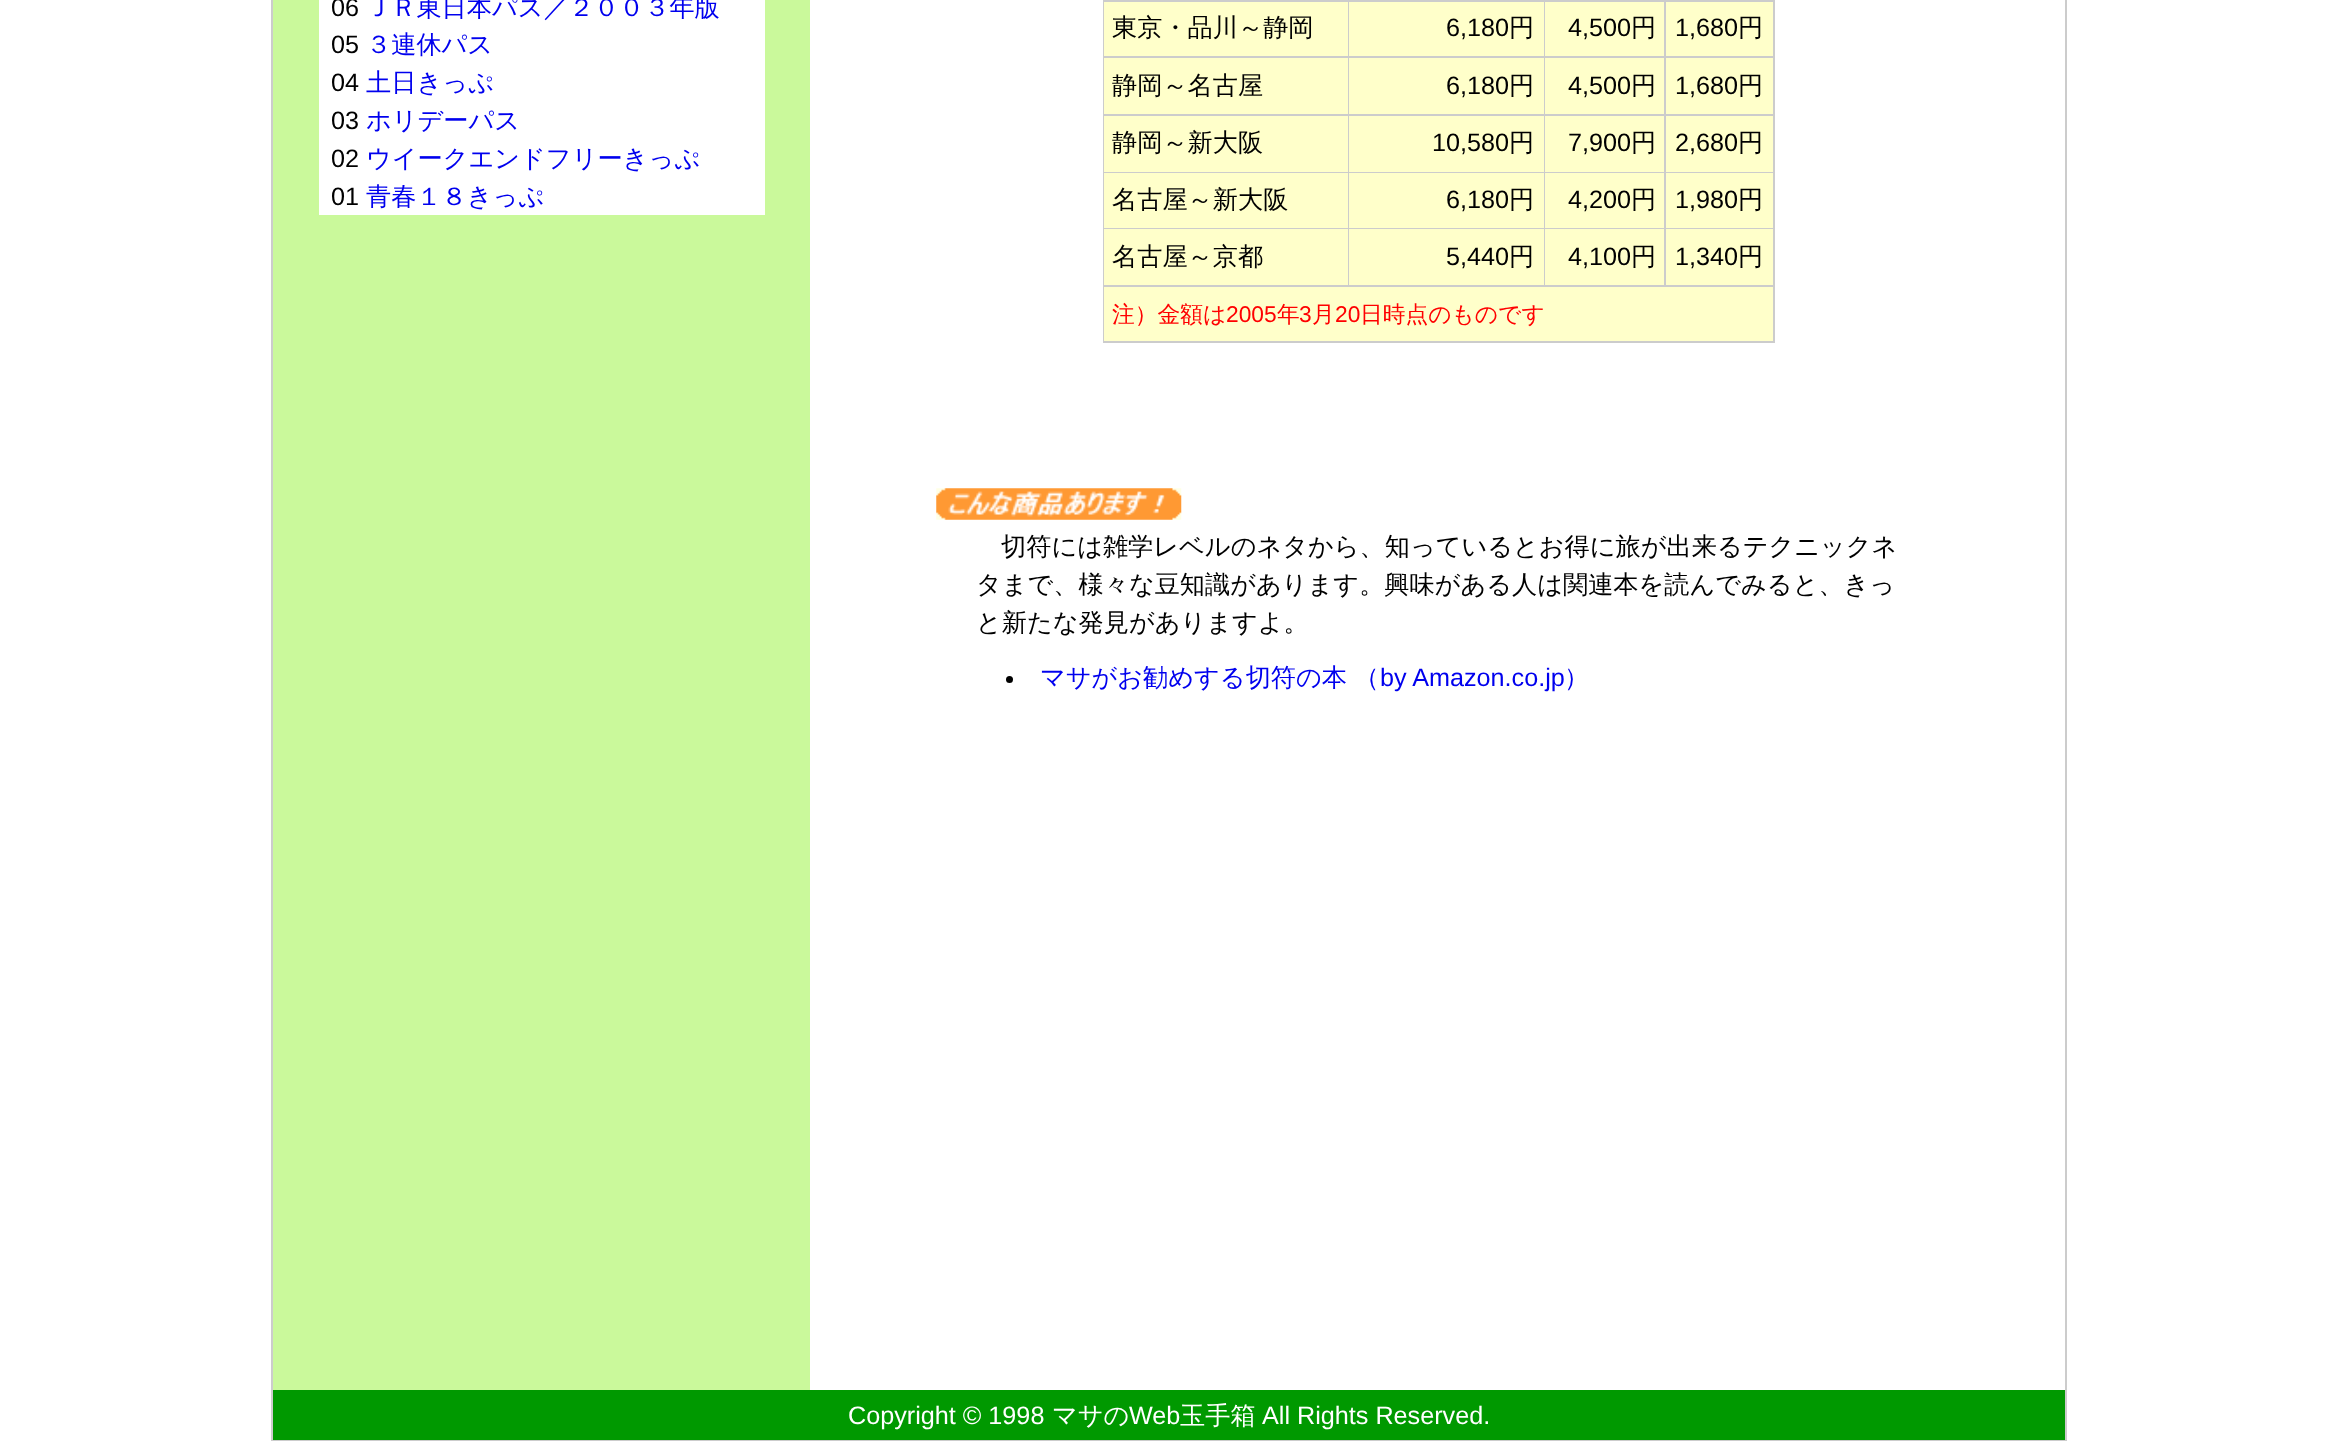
async function draw(canvas) {
  canvas.width = 2337
  canvas.height = 1441
  const ctx = canvas.getContext('2d')
  ctx.miterLimit = 4
  ctx.fontKerning = 'normal'
  async function loadImage(src) {
    const img = new Image()
    img.src = src
    await img.decode()
    return img
  }

  ctx.fillStyle = '#fff'
  ctx.fillRect(0, 0, 2337, 1441)
  ctx.fillStyle = '#caf99b'
  ctx.fillRect(273, 0, 537, 1390)
  ctx.strokeStyle = '#ccc'
  ctx.lineWidth = 2
  ctx.strokeRect(272, -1, 1794, 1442)
  ctx.fillStyle = '#fff'
  ctx.fillRect(319, 0, 446, 215)
  ctx.font = '25.2px Liberation Sans'
  ctx.fillStyle = '#000'
  ctx.fillText('06', 331, 16)
  ctx.font = '500 25.2px WenQuanYi Zen Hei'
  ctx.fillStyle = '#00e'
  ctx.fillText('ＪＲ東日本パス／２００３年版', 366, 16)
  ctx.font = '25.2px Liberation Sans'
  ctx.fillStyle = '#000'
  ctx.fillText('05', 331, 53)
  ctx.font = '500 25.2px WenQuanYi Zen Hei'
  ctx.fillStyle = '#00e'
  ctx.fillText('３連休パス', 366, 53)
  ctx.font = '25.2px Liberation Sans'
  ctx.fillStyle = '#000'
  ctx.fillText('04', 331, 91)
  ctx.font = '500 25.2px WenQuanYi Zen Hei'
  ctx.fillStyle = '#00e'
  ctx.fillText('土日きっぷ', 366, 91)
  ctx.font = '25.2px Liberation Sans'
  ctx.fillStyle = '#000'
  ctx.fillText('03', 331, 129)
  ctx.font = '500 25.2px WenQuanYi Zen Hei'
  ctx.fillStyle = '#00e'
  ctx.fillText('ホリデーパス', 366, 129)
  ctx.font = '25.2px Liberation Sans'
  ctx.fillStyle = '#000'
  ctx.fillText('02', 331, 167)
  ctx.font = '500 25.2px WenQuanYi Zen Hei'
  ctx.fillStyle = '#00e'
  ctx.fillText('ウイークエンドフリーきっぷ', 366, 167)
  ctx.font = '25.2px Liberation Sans'
  ctx.fillStyle = '#000'
  ctx.fillText('01', 331, 205)
  ctx.font = '500 25.2px WenQuanYi Zen Hei'
  ctx.fillStyle = '#00e'
  ctx.fillText('青春１８きっぷ', 366, 205)
  ctx.fillStyle = '#ccc'
  ctx.fillRect(1103, 0, 672, 343)
  ctx.fillStyle = '#ffffca'
  ctx.fillRect(1104, 2, 244, 54)
  ctx.fillStyle = '#000'
  ctx.fillText('東京・品川～静岡', 1112, 36)
  ctx.fillStyle = '#ffffca'
  ctx.fillRect(1349, 2, 195, 54)
  ctx.font = '25.2px Liberation Sans'
  ctx.fillStyle = '#000'
  ctx.fillText('6,180', 1446, 36)
  ctx.font = '500 25.2px WenQuanYi Zen Hei'
  ctx.fillText('円', 1509, 36)
  ctx.fillStyle = '#ffffca'
  ctx.fillRect(1545, 2, 119, 54)
  ctx.font = '25.2px Liberation Sans'
  ctx.fillStyle = '#000'
  ctx.fillText('4,500', 1568, 36)
  ctx.font = '500 25.2px WenQuanYi Zen Hei'
  ctx.fillText('円', 1631, 36)
  ctx.fillStyle = '#ffffca'
  ctx.fillRect(1666, 2, 107, 54)
  ctx.font = '25.2px Liberation Sans'
  ctx.fillStyle = '#000'
  ctx.fillText('1,680', 1675, 36)
  ctx.font = '500 25.2px WenQuanYi Zen Hei'
  ctx.fillText('円', 1738, 36)
  ctx.fillStyle = '#ffffca'
  ctx.fillRect(1104, 58, 244, 56)
  ctx.fillStyle = '#000'
  ctx.fillText('静岡～名古屋', 1112, 94)
  ctx.fillStyle = '#ffffca'
  ctx.fillRect(1349, 58, 195, 56)
  ctx.font = '25.2px Liberation Sans'
  ctx.fillStyle = '#000'
  ctx.fillText('6,180', 1446, 94)
  ctx.font = '500 25.2px WenQuanYi Zen Hei'
  ctx.fillText('円', 1509, 94)
  ctx.fillStyle = '#ffffca'
  ctx.fillRect(1545, 58, 119, 56)
  ctx.font = '25.2px Liberation Sans'
  ctx.fillStyle = '#000'
  ctx.fillText('4,500', 1568, 94)
  ctx.font = '500 25.2px WenQuanYi Zen Hei'
  ctx.fillText('円', 1631, 94)
  ctx.fillStyle = '#ffffca'
  ctx.fillRect(1666, 58, 107, 56)
  ctx.font = '25.2px Liberation Sans'
  ctx.fillStyle = '#000'
  ctx.fillText('1,680', 1675, 94)
  ctx.font = '500 25.2px WenQuanYi Zen Hei'
  ctx.fillText('円', 1738, 94)
  ctx.fillStyle = '#ffffca'
  ctx.fillRect(1104, 116, 244, 56)
  ctx.fillStyle = '#000'
  ctx.fillText('静岡～新大阪', 1112, 151)
  ctx.fillStyle = '#ffffca'
  ctx.fillRect(1349, 116, 195, 56)
  ctx.font = '25.2px Liberation Sans'
  ctx.fillStyle = '#000'
  ctx.fillText('10,580', 1432, 151)
  ctx.font = '500 25.2px WenQuanYi Zen Hei'
  ctx.fillText('円', 1509, 151)
  ctx.fillStyle = '#ffffca'
  ctx.fillRect(1545, 116, 119, 56)
  ctx.font = '25.2px Liberation Sans'
  ctx.fillStyle = '#000'
  ctx.fillText('7,900', 1568, 151)
  ctx.font = '500 25.2px WenQuanYi Zen Hei'
  ctx.fillText('円', 1631, 151)
  ctx.fillStyle = '#ffffca'
  ctx.fillRect(1666, 116, 107, 56)
  ctx.font = '25.2px Liberation Sans'
  ctx.fillStyle = '#000'
  ctx.fillText('2,680', 1675, 151)
  ctx.font = '500 25.2px WenQuanYi Zen Hei'
  ctx.fillText('円', 1738, 151)
  ctx.fillStyle = '#ffffca'
  ctx.fillRect(1104, 173, 244, 55)
  ctx.fillStyle = '#000'
  ctx.fillText('名古屋～新大阪', 1112, 208)
  ctx.fillStyle = '#ffffca'
  ctx.fillRect(1349, 173, 195, 55)
  ctx.font = '25.2px Liberation Sans'
  ctx.fillStyle = '#000'
  ctx.fillText('6,180', 1446, 208)
  ctx.font = '500 25.2px WenQuanYi Zen Hei'
  ctx.fillText('円', 1509, 208)
  ctx.fillStyle = '#ffffca'
  ctx.fillRect(1545, 173, 119, 55)
  ctx.font = '25.2px Liberation Sans'
  ctx.fillStyle = '#000'
  ctx.fillText('4,200', 1568, 208)
  ctx.font = '500 25.2px WenQuanYi Zen Hei'
  ctx.fillText('円', 1631, 208)
  ctx.fillStyle = '#ffffca'
  ctx.fillRect(1666, 173, 107, 55)
  ctx.font = '25.2px Liberation Sans'
  ctx.fillStyle = '#000'
  ctx.fillText('1,980', 1675, 208)
  ctx.font = '500 25.2px WenQuanYi Zen Hei'
  ctx.fillText('円', 1738, 208)
  ctx.fillStyle = '#ffffca'
  ctx.fillRect(1104, 229, 244, 56)
  ctx.fillStyle = '#000'
  ctx.fillText('名古屋～京都', 1112, 265)
  ctx.fillStyle = '#ffffca'
  ctx.fillRect(1349, 229, 195, 56)
  ctx.font = '25.2px Liberation Sans'
  ctx.fillStyle = '#000'
  ctx.fillText('5,440', 1446, 265)
  ctx.font = '500 25.2px WenQuanYi Zen Hei'
  ctx.fillText('円', 1509, 265)
  ctx.fillStyle = '#ffffca'
  ctx.fillRect(1545, 229, 119, 56)
  ctx.font = '25.2px Liberation Sans'
  ctx.fillStyle = '#000'
  ctx.fillText('4,100', 1568, 265)
  ctx.font = '500 25.2px WenQuanYi Zen Hei'
  ctx.fillText('円', 1631, 265)
  ctx.fillStyle = '#ffffca'
  ctx.fillRect(1666, 229, 107, 56)
  ctx.font = '25.2px Liberation Sans'
  ctx.fillStyle = '#000'
  ctx.fillText('1,340', 1675, 265)
  ctx.font = '500 25.2px WenQuanYi Zen Hei'
  ctx.fillText('円', 1738, 265)
  ctx.fillStyle = '#ffffca'
  ctx.fillRect(1104, 287, 669, 54)
  ctx.font = '500 22.75px WenQuanYi Zen Hei'
  ctx.fillStyle = '#f00'
  ctx.fillText('注）金額は', 1112, 322)
  ctx.font = '22.75px Liberation Sans'
  ctx.fillText('2005', 1226, 322)
  ctx.font = '500 22.75px WenQuanYi Zen Hei'
  ctx.fillText('年', 1277, 322)
  ctx.font = '22.75px Liberation Sans'
  ctx.fillText('3', 1299, 322)
  ctx.font = '500 22.75px WenQuanYi Zen Hei'
  ctx.fillText('月', 1312, 322)
  ctx.font = '22.75px Liberation Sans'
  ctx.fillText('20', 1335, 322)
  ctx.font = '500 22.75px WenQuanYi Zen Hei'
  ctx.fillText('日時点のものです', 1360, 322)
  ctx.drawImage(await loadImage('image0.png'), 936, 488, 246, 32)
  ctx.font = '500 25.2px WenQuanYi Zen Hei'
  ctx.fillStyle = '#000'
  ctx.fillText('切符には雑学レベルのネタから、知っているとお得に旅が出来るテクニックネ', 1001, 555)
  ctx.fillText('タまで、様々な豆知識があります。興味がある人は関連本を読んでみると、きっ', 976, 593)
  ctx.fillText('と新たな発見がありますよ。', 976, 631)
  ctx.beginPath()
  ctx.arc(1009.5, 679.5, 3.5, 0, 2 * Math.PI)
  ctx.fill()
  ctx.fillStyle = '#00e'
  ctx.fillText('マサがお勧めする切符の本', 1040, 686)
  ctx.fillText('（', 1354, 686)
  ctx.font = '25.2px Liberation Sans'
  ctx.fillText('by Amazon.co.jp', 1380, 686)
  ctx.font = '500 25.2px WenQuanYi Zen Hei'
  ctx.fillText('）', 1564, 686)
  ctx.fillStyle = '#090'
  ctx.fillRect(273, 1390, 1792, 50)
  ctx.font = '25.2px Liberation Sans'
  ctx.fillStyle = '#fff'
  ctx.fillText('Copyright © 1998', 848, 1424)
  ctx.font = '500 25.2px WenQuanYi Zen Hei'
  ctx.fillText('マサの', 1052, 1424)
  ctx.font = '25.2px Liberation Sans'
  ctx.fillText('Web', 1129, 1424)
  ctx.font = '500 25.2px WenQuanYi Zen Hei'
  ctx.fillText('玉手箱', 1180, 1424)
  ctx.font = '25.2px Liberation Sans'
  ctx.fillText('All Rights Reserved.', 1262, 1424)
}

draw(document.querySelector('canvas'))
